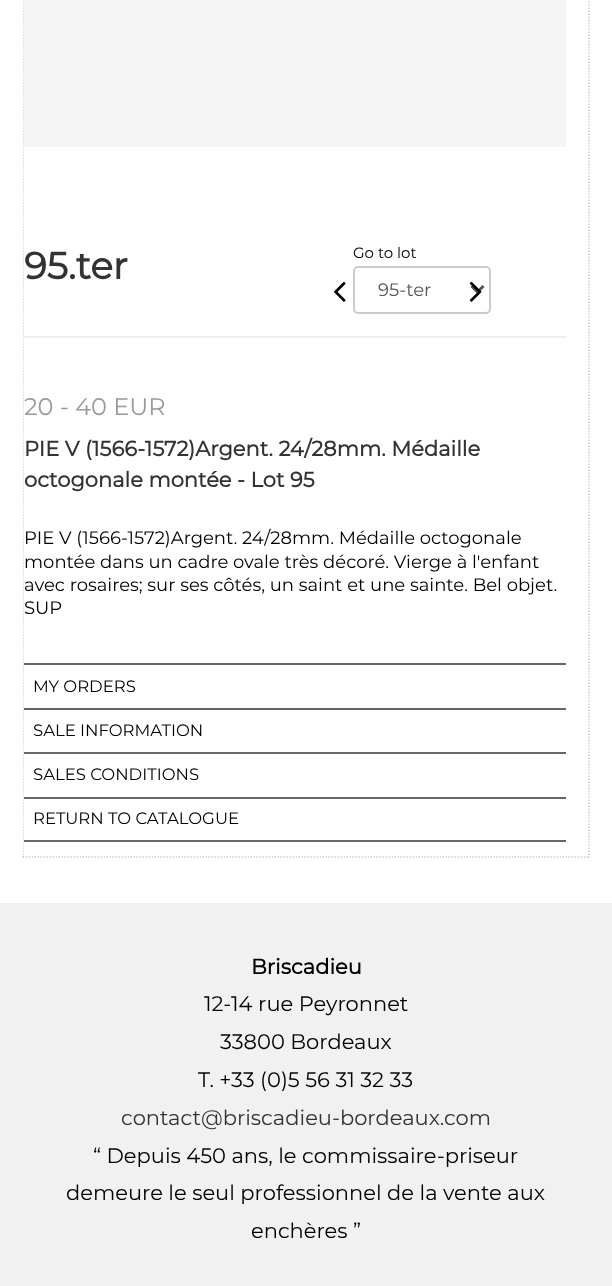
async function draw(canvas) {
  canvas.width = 612
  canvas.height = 1286
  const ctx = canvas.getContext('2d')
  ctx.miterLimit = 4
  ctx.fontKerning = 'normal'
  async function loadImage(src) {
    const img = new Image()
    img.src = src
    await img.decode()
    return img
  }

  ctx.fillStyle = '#fff'
  ctx.fillRect(0, 0, 612, 1286)
  ctx.beginPath()
  ctx.moveTo(589, -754.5)
  ctx.lineTo(589, 858)
  ctx.strokeStyle = '#ccc'
  ctx.lineWidth = 1.5
  ctx.setLineDash([1.5, 1.5])
  ctx.stroke()
  ctx.beginPath()
  ctx.moveTo(22.5, 857)
  ctx.lineTo(589.5, 857)
  ctx.stroke()
  ctx.save()
  ctx.beginPath()
  ctx.rect(23, 0, 567, 858)
  ctx.clip()
  ctx.beginPath()
  ctx.moveTo(23, -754.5)
  ctx.lineTo(23, 858)
  ctx.stroke()
  ctx.restore()
  ctx.fillStyle = '#f5f5f5'
  ctx.fillRect(24, 0, 542, 147)
  ctx.font = 'bold 37.5px Montserrat'
  ctx.fillStyle = '#333'
  ctx.fillText('95.ter', 24, 279)
  ctx.drawImage(await loadImage('image0.png'), 334, 281, 12, 21)
  ctx.font = '100 15px Montserrat'
  ctx.fillStyle = '#000'
  ctx.fillText('Go to lot', 353, 258)
  ctx.fillStyle = '#ececec'
  ctx.beginPath()
  ctx.moveTo(357, 268)
  ctx.lineTo(486, 268)
  ctx.bezierCurveTo(488, 268, 489, 270, 489, 272)
  ctx.lineTo(489, 270)
  ctx.bezierCurveTo(489, 268, 488, 267, 486, 267)
  ctx.lineTo(357, 267)
  ctx.bezierCurveTo(355, 267, 354, 268, 354, 270)
  ctx.lineTo(354, 272)
  ctx.bezierCurveTo(354, 270, 355, 268, 357, 268)
  ctx.closePath()
  ctx.fill()
  ctx.beginPath()
  ctx.roundRect(354, 267, 136, 46, 4)
  ctx.lineWidth = 2
  ctx.setLineDash([])
  ctx.stroke()
  ctx.beginPath()
  ctx.moveTo(471.5, 286)
  ctx.lineTo(477.5, 292)
  ctx.lineTo(483.5, 286)
  ctx.strokeStyle = '#555'
  ctx.lineWidth = 3
  ctx.stroke()
  ctx.font = '100 18px Montserrat'
  ctx.fillStyle = '#555'
  ctx.fillText('95-ter', 378, 296)
  ctx.drawImage(await loadImage('image1.png'), 469, 281, 13, 21)
  ctx.fillStyle = '#eee'
  ctx.fillRect(24, 336, 542, 2)
  ctx.font = '100 24px Montserrat'
  ctx.fillStyle = '#999'
  ctx.fillText('20 - 40 EUR', 24, 415)
  ctx.font = 'bold 21px Montserrat'
  ctx.fillStyle = '#333'
  ctx.fillText('PIE V (1566-1572)Argent. 24/28mm. Médaille', 24, 456)
  ctx.fillText('octogonale montée - Lot 95', 24, 487)
  ctx.font = '100 18px Montserrat'
  ctx.fillStyle = '#000'
  ctx.fillText('PIE V (1566-1572)Argent. 24/28mm. Médaille octogonale', 24, 544)
  ctx.fillText('montée dans un cadre ovale très décoré. Vierge à l\'enfant', 24, 568)
  ctx.fillText('avec rosaires; sur ses côtés, un saint et une sainte. Bel objet.', 24, 591)
  ctx.fillText('SUP', 24, 614)
  ctx.fillStyle = '#666'
  ctx.fillRect(24, 663, 542, 2)
  ctx.fillRect(24, 708, 542, 2)
  ctx.font = '100 16.5px Montserrat'
  ctx.fillStyle = '#000'
  ctx.fillText('MY ORDERS', 33, 692)
  ctx.fillStyle = '#666'
  ctx.fillRect(24, 752, 542, 2)
  ctx.fillStyle = '#000'
  ctx.fillText('SALE INFORMATION', 33, 736)
  ctx.fillStyle = '#666'
  ctx.fillRect(24, 797, 542, 2)
  ctx.fillStyle = '#000'
  ctx.fillText('SALES CONDITIONS', 33, 780)
  ctx.fillStyle = '#666'
  ctx.fillRect(24, 840, 542, 2)
  ctx.fillStyle = '#000'
  ctx.fillText('RETURN TO CATALOGUE', 33, 824)
  ctx.fillStyle = '#f1f1f1'
  ctx.fillRect(0, 903, 612, 383)
  ctx.font = 'bold 21px Montserrat'
  ctx.fillStyle = '#000'
  ctx.fillText('Briscadieu', 251, 974)
  ctx.font = '100 21px Montserrat'
  ctx.fillText('12-14 rue Peyronnet', 204, 1011)
  ctx.fillText('33800 Bordeaux', 220, 1049)
  ctx.fillText('T. +33 (0)5 56 31 32 33', 198, 1087)
  ctx.fillStyle = '#333'
  ctx.fillText('contact@briscadieu-bordeaux.com', 121, 1125)
  ctx.fillStyle = '#000'
  ctx.fillText('“ Depuis 450 ans, le commissaire-priseur', 93, 1163)
  ctx.fillText('demeure le seul professionnel de la vente aux', 66, 1200)
  ctx.fillText('enchères ”', 251, 1238)
}

draw(document.querySelector('canvas'))
